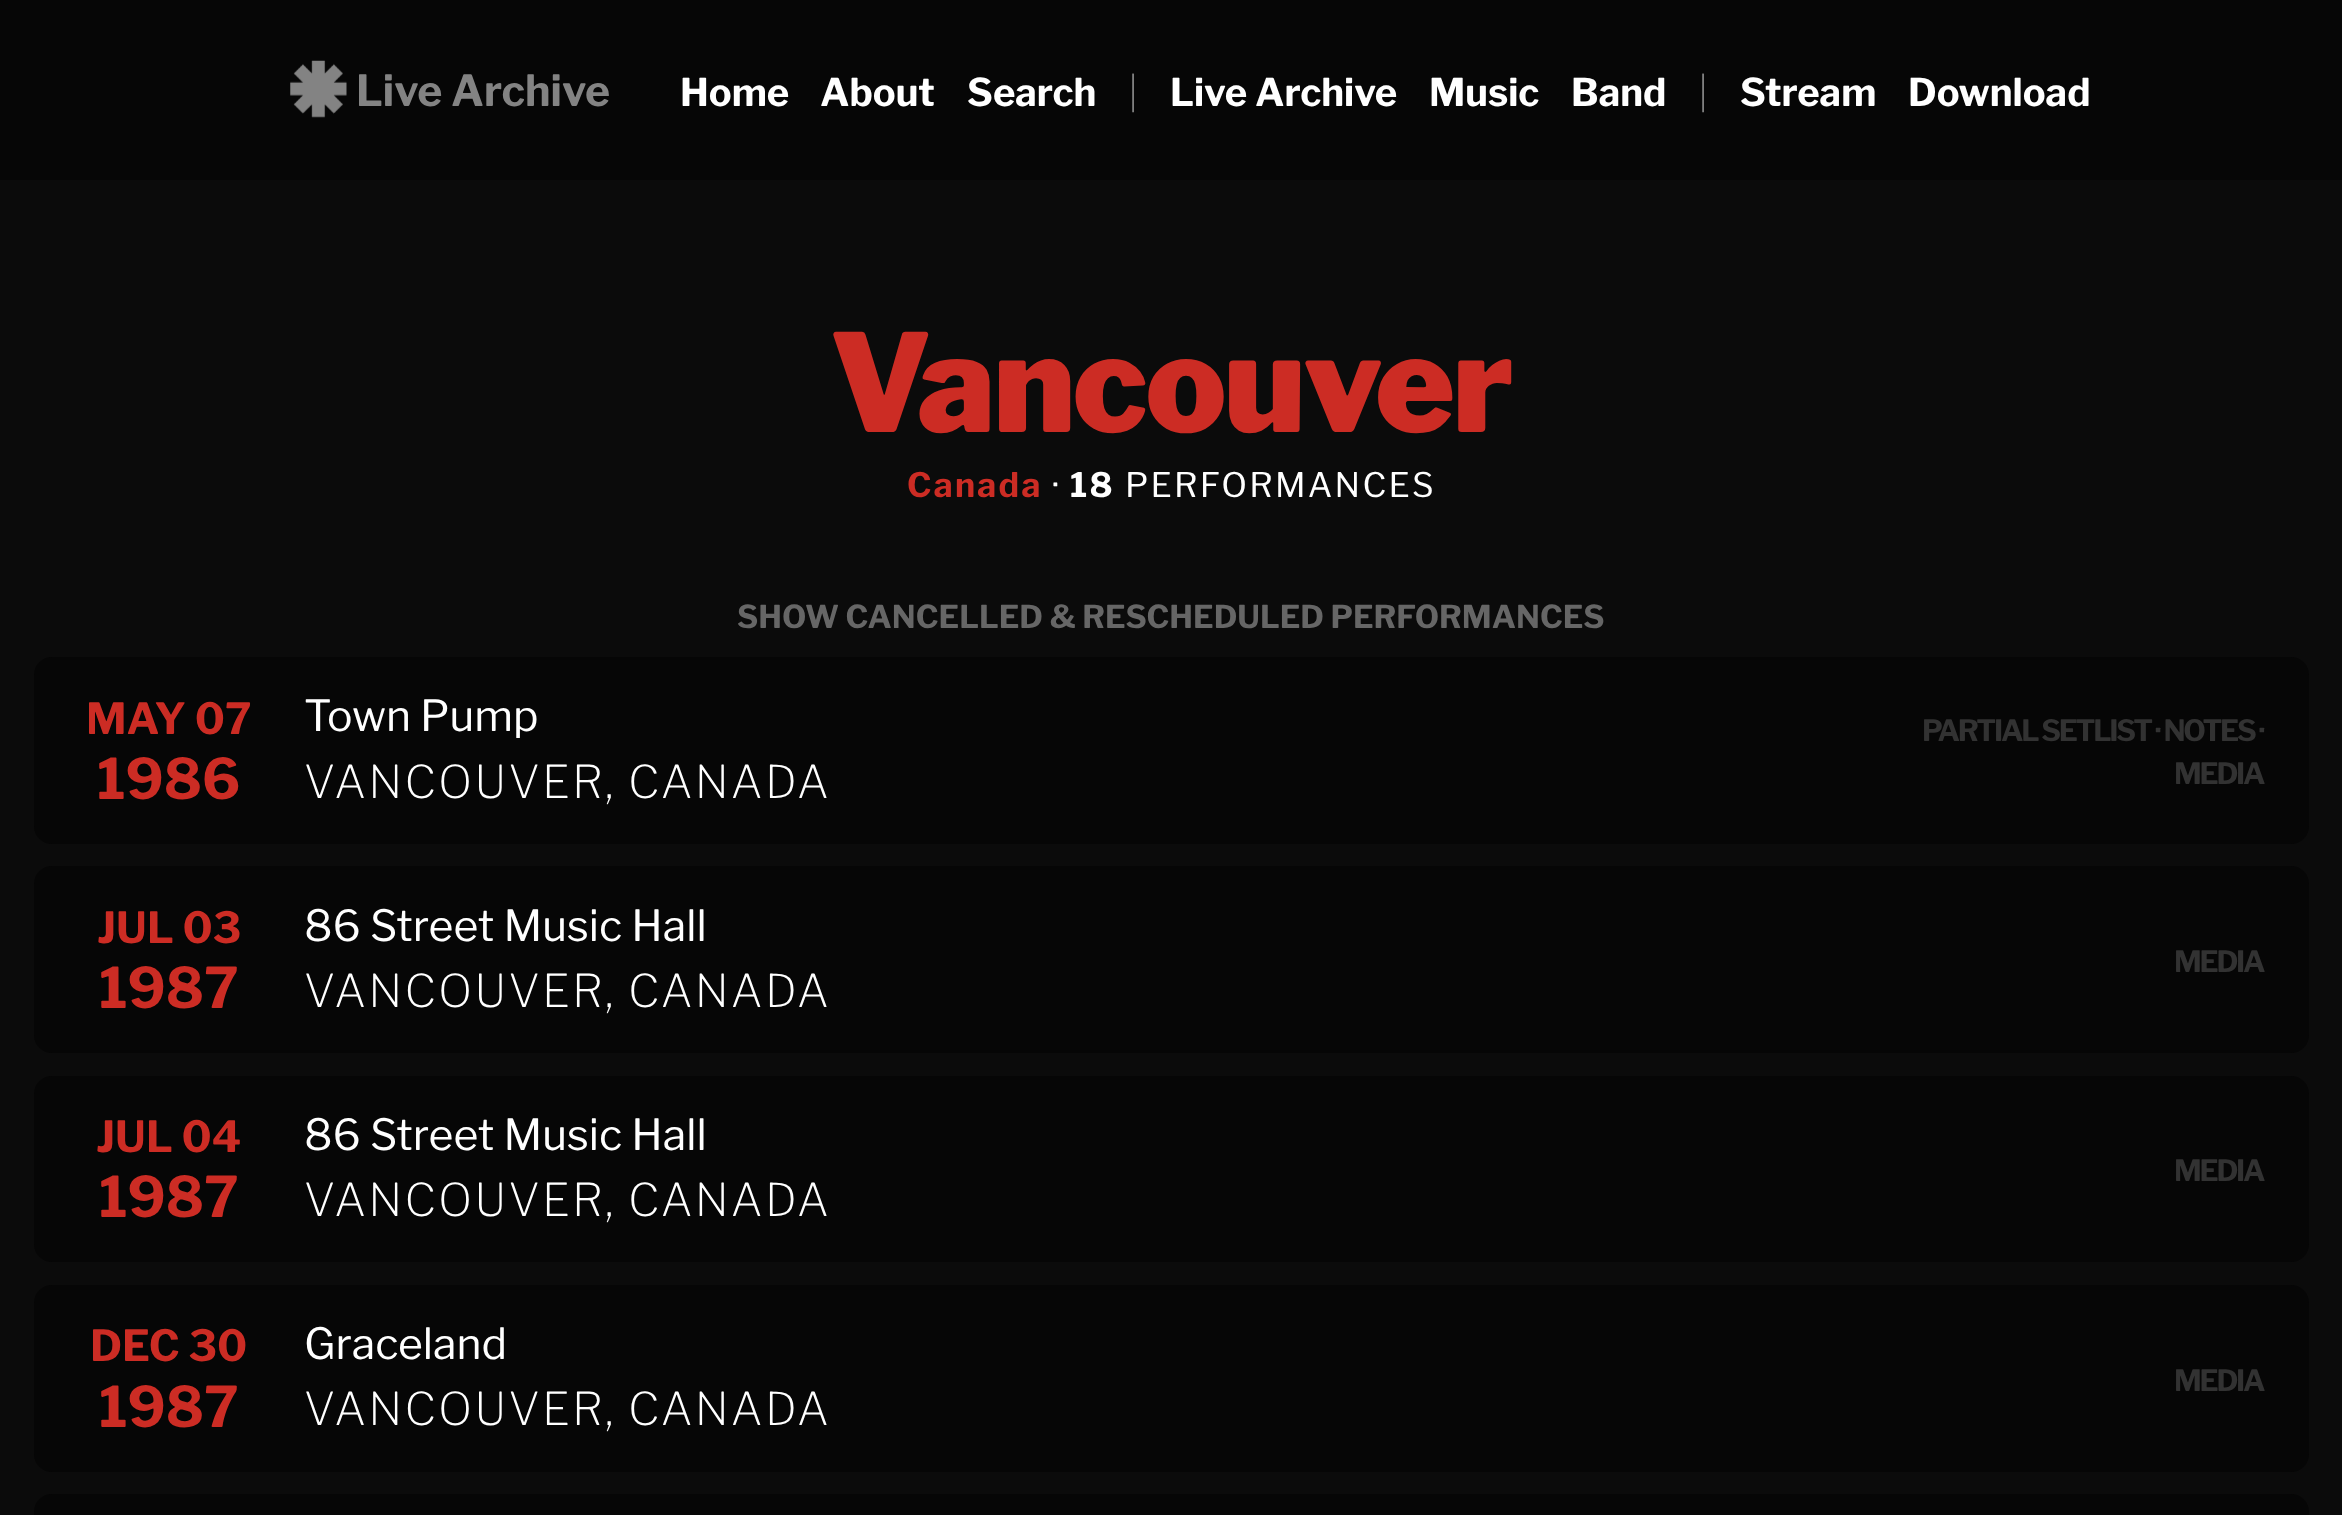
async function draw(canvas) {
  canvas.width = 2342
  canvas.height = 1515
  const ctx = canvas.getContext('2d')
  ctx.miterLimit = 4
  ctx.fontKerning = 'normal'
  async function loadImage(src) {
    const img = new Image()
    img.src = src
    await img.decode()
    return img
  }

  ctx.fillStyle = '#0b0b0b'
  ctx.fillRect(0, 0, 2342, 1515)
  ctx.fillStyle = '#060606'
  ctx.fillRect(0, 0, 2342, 180)
  ctx.drawImage(await loadImage('image0.png'), 290, 60, 57, 58)
  ctx.font = 'bold 42.75px Libre Franklin'
  ctx.fillStyle = '#838383'
  ctx.fillText('Live Archive', 356, 106)
  ctx.font = 'bold 38.25px Libre Franklin'
  ctx.fillStyle = '#fff'
  ctx.fillText('Home', 680, 106)
  ctx.fillText('About', 820, 106)
  ctx.fillText('Search', 967, 106)
  ctx.font = '200 38.25px Libre Franklin'
  ctx.fillStyle = '#838383'
  ctx.fillText('|', 1128, 106)
  ctx.font = 'bold 38.25px Libre Franklin'
  ctx.fillStyle = '#fff'
  ctx.fillText('Live Archive', 1170, 106)
  ctx.fillText('Music', 1429, 106)
  ctx.fillText('Band', 1571, 106)
  ctx.font = '200 38.25px Libre Franklin'
  ctx.fillStyle = '#838383'
  ctx.fillText('|', 1698, 106)
  ctx.font = 'bold 38.25px Libre Franklin'
  ctx.fillStyle = '#fff'
  ctx.fillText('Stream', 1740, 106)
  ctx.fillText('Download', 1908, 106)
  ctx.letterSpacing = '-2.25px'
  ctx.font = '900 135px Libre Franklin'
  ctx.fillStyle = '#cc2c24'
  ctx.fillText('Vancouver', 830, 432)
  ctx.letterSpacing = '2.25px'
  ctx.font = 'bold 33.75px Libre Franklin'
  ctx.fillText('Canada', 907, 497)
  ctx.font = '33.75px Libre Franklin'
  ctx.fillStyle = '#fff'
  ctx.fillText('·', 1052, 497)
  ctx.font = 'bold 33.75px Libre Franklin'
  ctx.fillText('18', 1070, 497)
  ctx.font = '33.75px Libre Franklin'
  ctx.fillText('PERFORMANCES', 1125, 497)
  ctx.letterSpacing = '0px'
  ctx.font = 'bold 31.5px Libre Franklin'
  ctx.fillStyle = '#666'
  ctx.fillText('SHOW CANCELLED & RESCHEDULED PERFORMANCES', 737, 628)
  ctx.fillStyle = '#060606'
  ctx.beginPath()
  ctx.roundRect(34, 657, 2275, 187, 18)
  ctx.fill()
  ctx.font = 'bold 42.75px Libre Franklin'
  ctx.fillStyle = '#cc2c24'
  ctx.fillText('MAY 07', 86, 734)
  ctx.font = 'bold 56px Libre Franklin'
  ctx.fillText('1986', 97, 799)
  ctx.font = '42.75px Libre Franklin'
  ctx.fillStyle = '#fff'
  ctx.fillText('Town Pump', 304, 731)
  ctx.letterSpacing = '2.25px'
  ctx.font = '200 45px Libre Franklin'
  ctx.fillText('VANCOUVER, CANADA', 304, 798)
  ctx.letterSpacing = '-2.25px'
  ctx.font = 'bold 29.25px Libre Franklin'
  ctx.fillStyle = '#323232'
  ctx.fillText('PARTIAL SETLIST · NOTES ·', 1922, 741)
  ctx.fillText('MEDIA', 2174, 784)
  ctx.fillStyle = '#060606'
  ctx.beginPath()
  ctx.roundRect(34, 866, 2275, 187, 18)
  ctx.fill()
  ctx.letterSpacing = '0px'
  ctx.font = 'bold 42.75px Libre Franklin'
  ctx.fillStyle = '#cc2c24'
  ctx.fillText('JUL 03', 97, 943)
  ctx.font = 'bold 56px Libre Franklin'
  ctx.fillText('1987', 99, 1008)
  ctx.font = '42.75px Libre Franklin'
  ctx.fillStyle = '#fff'
  ctx.fillText('86 Street Music Hall', 304, 941)
  ctx.letterSpacing = '2.25px'
  ctx.font = '200 45px Libre Franklin'
  ctx.fillText('VANCOUVER, CANADA', 304, 1007)
  ctx.letterSpacing = '-2.25px'
  ctx.font = 'bold 29.25px Libre Franklin'
  ctx.fillStyle = '#323232'
  ctx.fillText('MEDIA', 2174, 972)
  ctx.fillStyle = '#060606'
  ctx.beginPath()
  ctx.roundRect(34, 1076, 2275, 186, 18)
  ctx.fill()
  ctx.letterSpacing = '0px'
  ctx.font = 'bold 42.75px Libre Franklin'
  ctx.fillStyle = '#cc2c24'
  ctx.fillText('JUL 04', 96, 1152)
  ctx.font = 'bold 56px Libre Franklin'
  ctx.fillText('1987', 99, 1217)
  ctx.font = '42.75px Libre Franklin'
  ctx.fillStyle = '#fff'
  ctx.fillText('86 Street Music Hall', 304, 1150)
  ctx.letterSpacing = '2.25px'
  ctx.font = '200 45px Libre Franklin'
  ctx.fillText('VANCOUVER, CANADA', 304, 1216)
  ctx.letterSpacing = '-2.25px'
  ctx.font = 'bold 29.25px Libre Franklin'
  ctx.fillStyle = '#323232'
  ctx.fillText('MEDIA', 2174, 1181)
  ctx.fillStyle = '#060606'
  ctx.beginPath()
  ctx.roundRect(34, 1285, 2275, 187, 18)
  ctx.fill()
  ctx.letterSpacing = '0px'
  ctx.font = 'bold 42.75px Libre Franklin'
  ctx.fillStyle = '#cc2c24'
  ctx.fillText('DEC 30', 90, 1361)
  ctx.font = 'bold 56px Libre Franklin'
  ctx.fillText('1987', 99, 1427)
  ctx.font = '42.75px Libre Franklin'
  ctx.fillStyle = '#fff'
  ctx.fillText('Graceland', 304, 1359)
  ctx.letterSpacing = '2.25px'
  ctx.font = '200 45px Libre Franklin'
  ctx.fillText('VANCOUVER, CANADA', 304, 1425)
  ctx.letterSpacing = '-2.25px'
  ctx.font = 'bold 29.25px Libre Franklin'
  ctx.fillStyle = '#323232'
  ctx.fillText('MEDIA', 2174, 1391)
  ctx.fillStyle = '#060606'
  ctx.beginPath()
  ctx.roundRect(34, 1494, 2275, 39, 18)
  ctx.fill()
}

draw(document.querySelector('canvas'))
